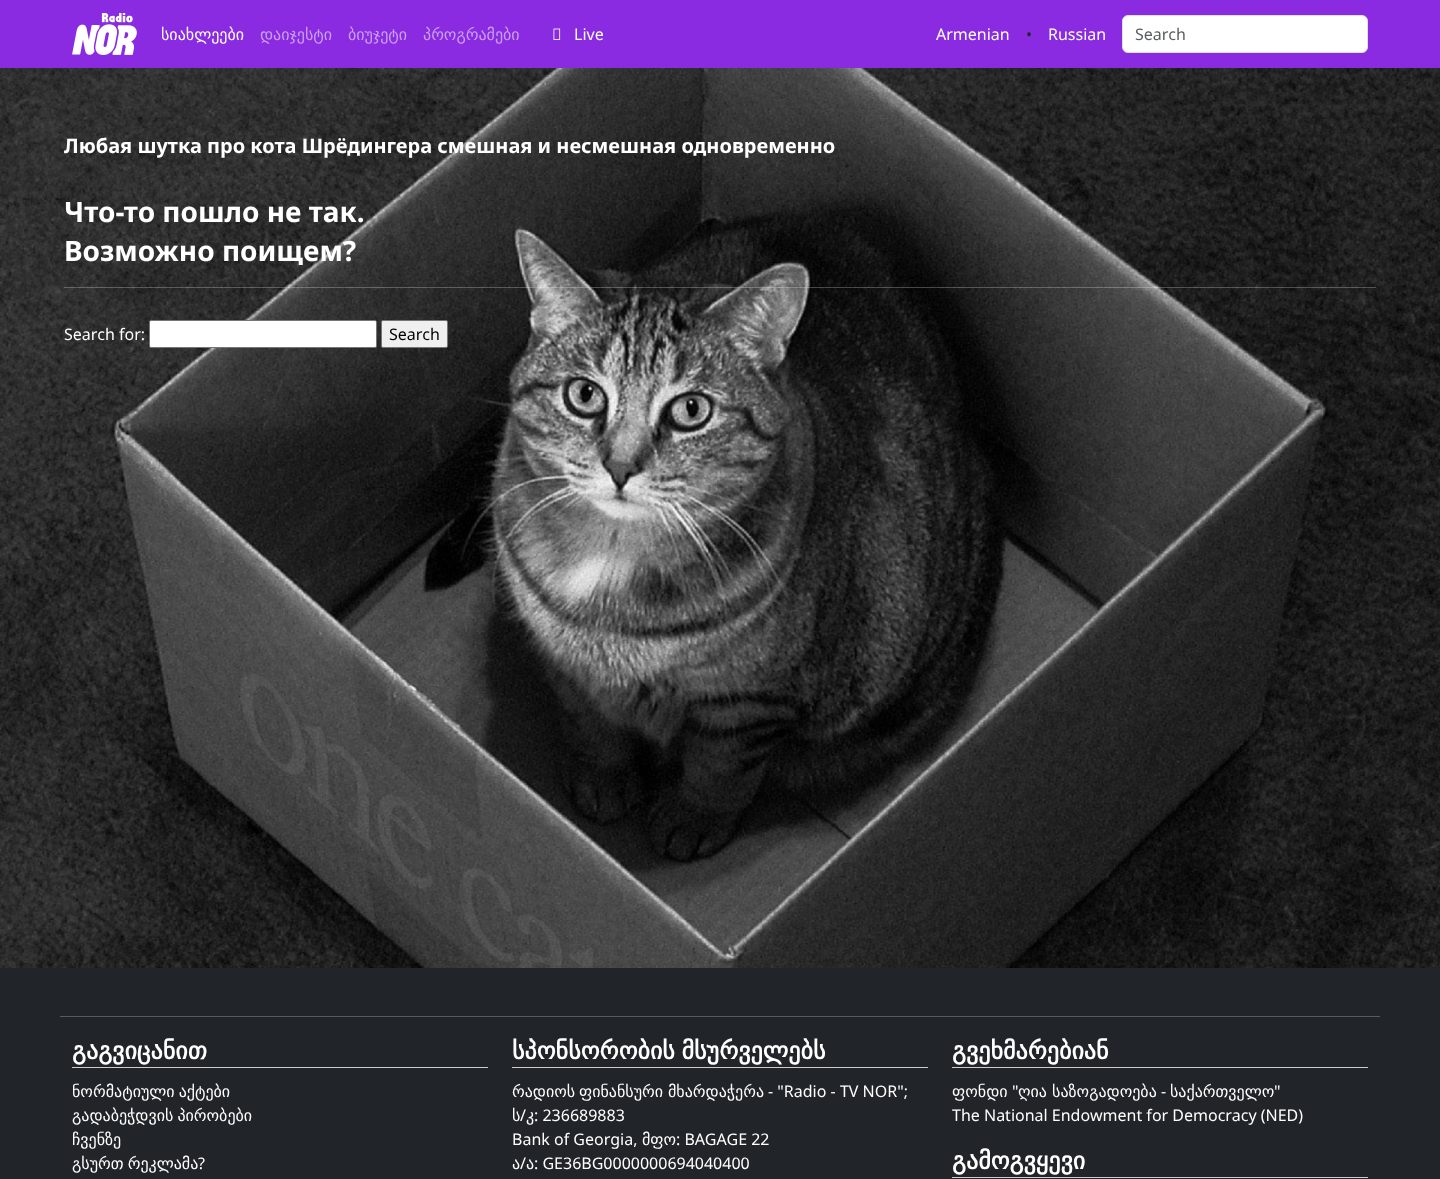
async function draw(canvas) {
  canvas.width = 1440
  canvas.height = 1179
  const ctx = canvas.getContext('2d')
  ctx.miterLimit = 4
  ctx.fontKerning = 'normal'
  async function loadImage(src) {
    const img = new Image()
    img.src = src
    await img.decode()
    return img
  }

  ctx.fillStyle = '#212529'
  ctx.fillRect(0, 0, 1440, 1179)
  ctx.fillStyle = '#8a2be2'
  ctx.fillRect(0, 0, 1440, 68)
  ctx.drawImage(await loadImage('image0.png'), 72, 13, 65, 42)
  ctx.font = '16px DejaVu Sans'
  ctx.fillStyle = '#fff'
  ctx.fillText('სიახლეები', 161, 40)
  ctx.fillStyle = '#caa0f2'
  ctx.fillText('დაიჯესტი', 260, 40)
  ctx.fillText('ბიუჯეტი', 348, 40)
  ctx.fillText('პროგრამები', 423, 40)
  ctx.drawImage(await loadImage('image1.png'), 553, 28, 8, 12)
  ctx.font = '16px Noto Sans'
  ctx.fillStyle = '#fff'
  ctx.fillText('Live', 574, 40)
  ctx.fillText('Armenian', 936, 40)
  ctx.fillStyle = '#212529'
  ctx.fillText('•', 1026, 40)
  ctx.fillStyle = '#fff'
  ctx.fillText('Russian', 1048, 40)
  ctx.beginPath()
  ctx.roundRect(1122.5, 15.5, 245, 37, 5.5)
  ctx.fill()
  ctx.strokeStyle = '#dee2e6'
  ctx.stroke()
  ctx.fillStyle = '#595c5f'
  ctx.fillText('Search', 1135, 40)
  ctx.drawImage(await loadImage('image2.png'), 0, 68, 1440, 900)
  ctx.font = 'bold 20px Noto Sans'
  ctx.fillStyle = '#fff'
  ctx.fillText('Любая шутка про кота Шрёдингера смешная и несмешная одновременно', 64, 153)
  ctx.font = 'bold 28px Noto Sans'
  ctx.fillText('Что-то пошло не так.', 64, 222)
  ctx.fillText('Возможно поищем?', 64, 261)
  ctx.fillStyle = '#ffffff40'
  ctx.fillRect(64, 287, 1312, 1)
  ctx.font = '16px Noto Sans'
  ctx.fillStyle = '#fff'
  ctx.fillText('Search for:', 64, 340)
  ctx.beginPath()
  ctx.roundRect(149.5, 320.5, 227, 27, 1.5)
  ctx.fill()
  ctx.strokeStyle = '#767676'
  ctx.stroke()
  ctx.fillStyle = '#efefef'
  ctx.beginPath()
  ctx.roundRect(381.5, 320.5, 66, 27, 1.5)
  ctx.fill()
  ctx.stroke()
  ctx.fillStyle = '#000'
  ctx.fillText('Search', 389, 340)
  ctx.fillStyle = '#595c5f'
  ctx.fillRect(60, 1016, 1320, 1)
  ctx.fillStyle = '#ccc'
  ctx.fillRect(72, 1067, 416, 1)
  ctx.font = 'bold 24px DejaVu Sans'
  ctx.fillStyle = '#fff'
  ctx.fillText('გაგვიცანით', 72, 1059)
  ctx.wordSpacing = '-1px'
  ctx.font = '16px DejaVu Sans'
  ctx.fillText('ნორმატიული აქტები', 72, 1097)
  ctx.fillText('გადაბეჭდვის პირობები', 72, 1121)
  ctx.wordSpacing = '0px'
  ctx.fillText('ჩვენზე', 72, 1145)
  ctx.wordSpacing = '-1px'
  ctx.fillText('გსურთ რეკლამა', 72, 1169)
  ctx.wordSpacing = '0px'
  ctx.font = '16px Noto Sans'
  ctx.fillText('?', 198, 1169)
  ctx.fillStyle = '#ccc'
  ctx.fillRect(512, 1067, 416, 1)
  ctx.wordSpacing = '-1px'
  ctx.font = 'bold 24px DejaVu Sans'
  ctx.fillStyle = '#fff'
  ctx.fillText('სპონსორობის მსურველებს', 512, 1059)
  ctx.wordSpacing = '0px'
  ctx.font = '16px DejaVu Sans'
  ctx.fillText('რადიოს', 512, 1097)
  ctx.fillText('ფინანსური', 579, 1097)
  ctx.fillText('მხარდაჭერა', 668, 1097)
  ctx.font = '16px Noto Sans'
  ctx.fillText('- "Radio - TV NOR";', 768, 1097)
  ctx.font = '16px DejaVu Sans'
  ctx.fillText('ს', 512, 1121)
  ctx.font = '16px Noto Sans'
  ctx.fillText('/', 520, 1121)
  ctx.font = '16px DejaVu Sans'
  ctx.fillText('კ', 526, 1121)
  ctx.font = '16px Noto Sans'
  ctx.fillText(': 236689883', 534, 1121)
  ctx.fillText('Bank of Georgia,', 512, 1145)
  ctx.font = '16px DejaVu Sans'
  ctx.fillText('მფო', 642, 1145)
  ctx.font = '16px Noto Sans'
  ctx.fillText(': BAGAGE 22', 676, 1145)
  ctx.font = '16px DejaVu Sans'
  ctx.fillText('ა', 512, 1169)
  ctx.font = '16px Noto Sans'
  ctx.fillText('/', 520, 1169)
  ctx.font = '16px DejaVu Sans'
  ctx.fillText('ა', 526, 1169)
  ctx.font = '16px Noto Sans'
  ctx.fillText(': GE36BG0000000694040400', 534, 1169)
  ctx.fillStyle = '#ccc'
  ctx.fillRect(952, 1067, 416, 1)
  ctx.font = 'bold 24px DejaVu Sans'
  ctx.fillStyle = '#fff'
  ctx.fillText('გვეხმარებიან', 952, 1059)
  ctx.font = '16px DejaVu Sans'
  ctx.fillText('ფონდი', 952, 1097)
  ctx.font = '16px Noto Sans'
  ctx.fillText('"', 1012, 1097)
  ctx.font = '16px DejaVu Sans'
  ctx.fillText('ღია საზოგადოება', 1018, 1097)
  ctx.fillText('საქართველო', 1170, 1097)
  ctx.font = '16px Noto Sans'
  ctx.fillText('"', 1274, 1097)
  ctx.fillText('-', 1161, 1097)
  ctx.fillText('The National Endowment for Democracy (NED)', 952, 1121)
  ctx.fillStyle = '#ccc'
  ctx.fillRect(952, 1177, 416, 1)
  ctx.font = 'bold 24px DejaVu Sans'
  ctx.fillStyle = '#fff'
  ctx.fillText('გამოგვყევი', 952, 1169)
}

draw(document.querySelector('canvas'))
